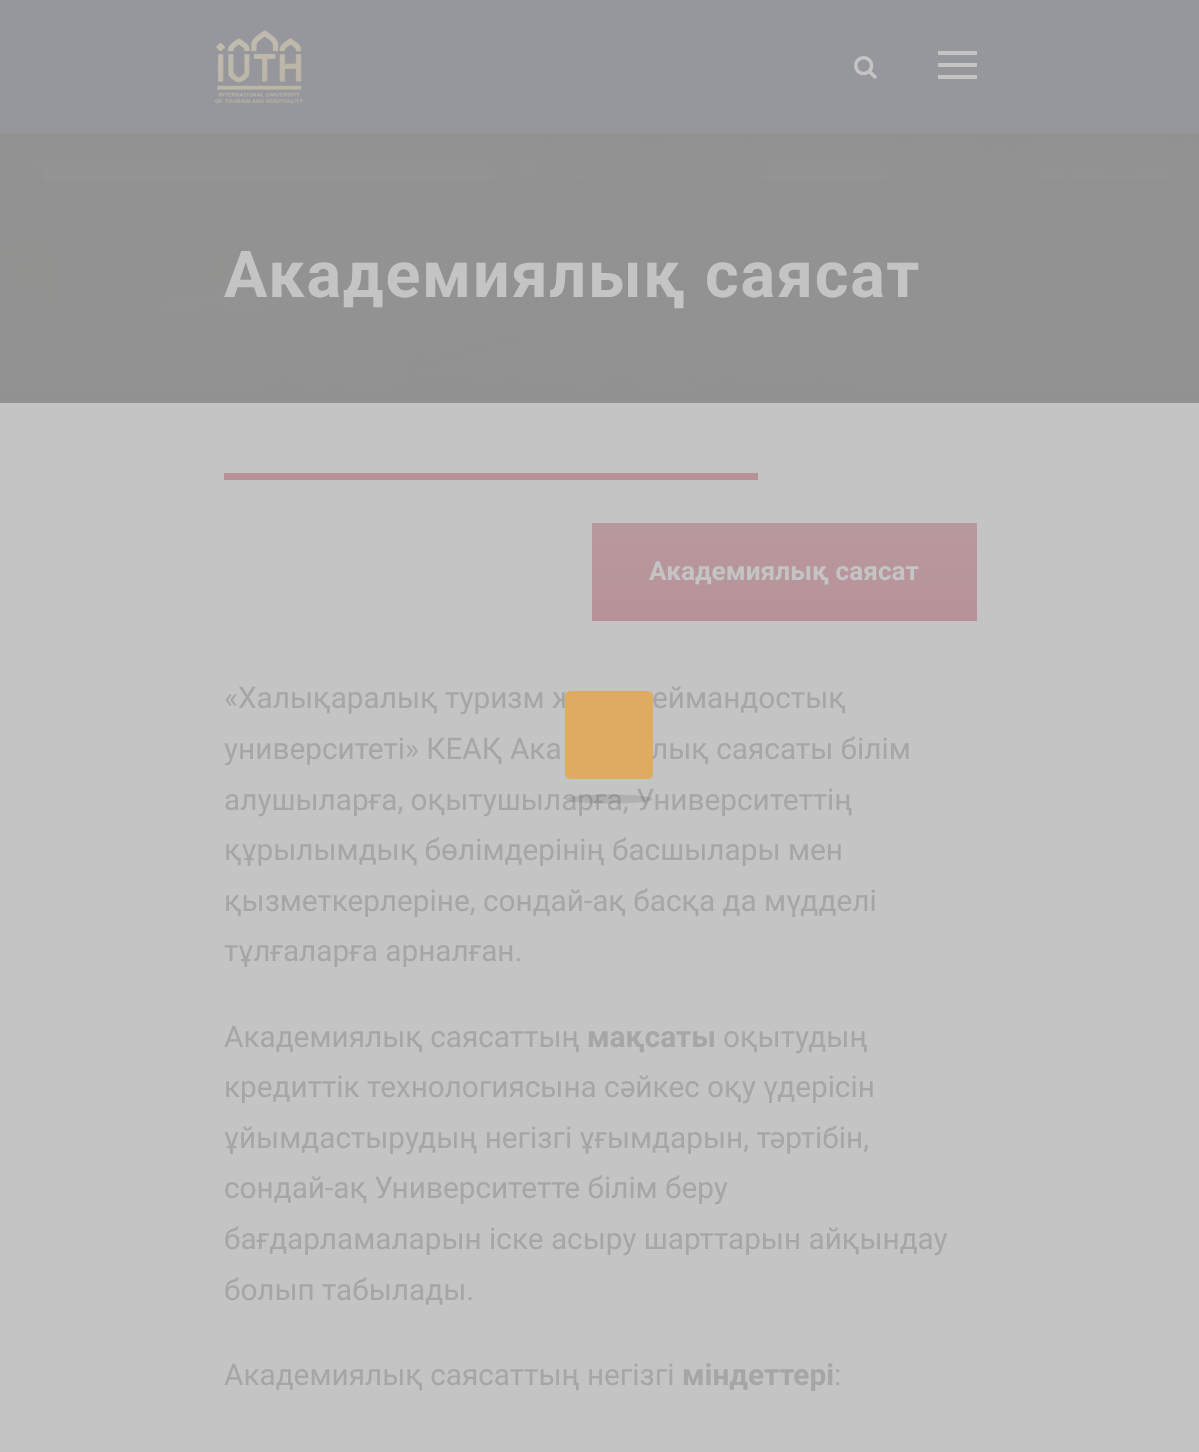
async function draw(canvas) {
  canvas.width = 1199
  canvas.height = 1452
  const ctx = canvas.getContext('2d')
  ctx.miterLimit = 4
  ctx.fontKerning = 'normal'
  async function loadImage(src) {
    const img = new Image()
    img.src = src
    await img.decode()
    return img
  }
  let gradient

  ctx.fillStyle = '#c4c4c4'
  ctx.fillRect(0, 0, 1199, 1452)
  ctx.fillStyle = '#96969d'
  ctx.fillRect(0, 0, 1199, 133)
  ctx.drawImage(await loadImage('image0.png'), 215, 30, 88, 74)
  ctx.drawImage(await loadImage('image1.png'), 854, 56, 23, 23)
  ctx.fillStyle = '#c4c4c4'
  ctx.fillRect(938, 51, 39, 4)
  ctx.fillRect(938, 63, 39, 4)
  ctx.fillRect(938, 75, 39, 4)
  ctx.drawImage(await loadImage('image2.png'), 0, 137, 1199, 262)
  gradient = ctx.createLinearGradient(600, 856, 600, 133)
  gradient.addColorStop(0, '#91919100')
  gradient.addColorStop(1, '#919191')
  ctx.fillStyle = gradient
  ctx.fillRect(0, 133, 1199, 266)
  gradient = ctx.createLinearGradient(600, -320, 600, 403)
  gradient.addColorStop(0, '#91919100')
  gradient.addColorStop(1, '#919191')
  ctx.fillStyle = gradient
  ctx.fillRect(0, 180, 1199, 223)
  ctx.letterSpacing = '1.75px'
  ctx.font = 'bold 64.75px Roboto'
  ctx.fillStyle = '#c4c4c4'
  ctx.fillText('Академиялық саясат', 224, 297)
  ctx.fillStyle = '#b89199'
  ctx.fillRect(224, 473, 534, 7)
  gradient = ctx.createLinearGradient(784, 523, 784, 621)
  gradient.addColorStop(0, '#b8999e')
  gradient.addColorStop(1, '#b89199')
  ctx.fillStyle = gradient
  ctx.fillRect(592, 523, 385, 98)
  ctx.letterSpacing = '0px'
  ctx.font = 'bold 26.25px Roboto'
  ctx.fillStyle = '#c4c4c4'
  ctx.fillText('Академиялық саясат', 649, 580)
  ctx.font = '29.75px Roboto'
  ctx.fillStyle = '#a6a6a6'
  ctx.fillText('«Халықаралық туризм ж', 224, 708)
  ctx.fillText('еймандостық', 652, 708)
  ctx.fillText('университеті» КЕАҚ Ака', 224, 759)
  ctx.fillText('лық саясаты білім', 651, 759)
  ctx.fillText('алушыларға, оқытушыларға, Университеттің', 224, 810)
  ctx.fillText('құрылымдық бөлімдерінің басшылары мен', 224, 860)
  ctx.fillText('қызметкерлеріне, сондай-ақ басқа да мүдделі', 224, 911)
  ctx.fillText('тұлғаларға арналған.', 224, 961)
  ctx.fillText('Академиялық саясаттың', 224, 1047)
  ctx.font = 'bold 29.75px Roboto'
  ctx.fillText('мақсаты', 587, 1047)
  ctx.font = '29.75px Roboto'
  ctx.fillText('оқытудың', 723, 1047)
  ctx.fillText('кредиттік технологиясына сәйкес оқу үдерісін', 224, 1097)
  ctx.fillText('ұйымдастырудың негізгі ұғымдарын, тәртібін,', 224, 1148)
  ctx.fillText('сондай-ақ Университетте білім беру', 224, 1198)
  ctx.fillText('бағдарламаларын іске асыру шарттарын айқындау', 224, 1249)
  ctx.fillText('болып табылады.', 224, 1300)
  ctx.fillText('Академиялық саясаттың негізгі', 224, 1385)
  ctx.font = 'bold 29.75px Roboto'
  ctx.fillText('міндеттері', 682, 1385)
  ctx.font = '29.75px Roboto'
  ctx.fillText(':', 834, 1385)
  ctx.fillStyle = '#ddac61'
  ctx.beginPath()
  ctx.roundRect(565, 691, 88, 88, 5)
  ctx.fill()
  ctx.fillStyle = '#0000001a'
  ctx.beginPath()
  ctx.ellipse(609, 799, 44, 4.5, 0, 0, 2 * Math.PI)
  ctx.fill()
}

draw(document.querySelector('canvas'))
